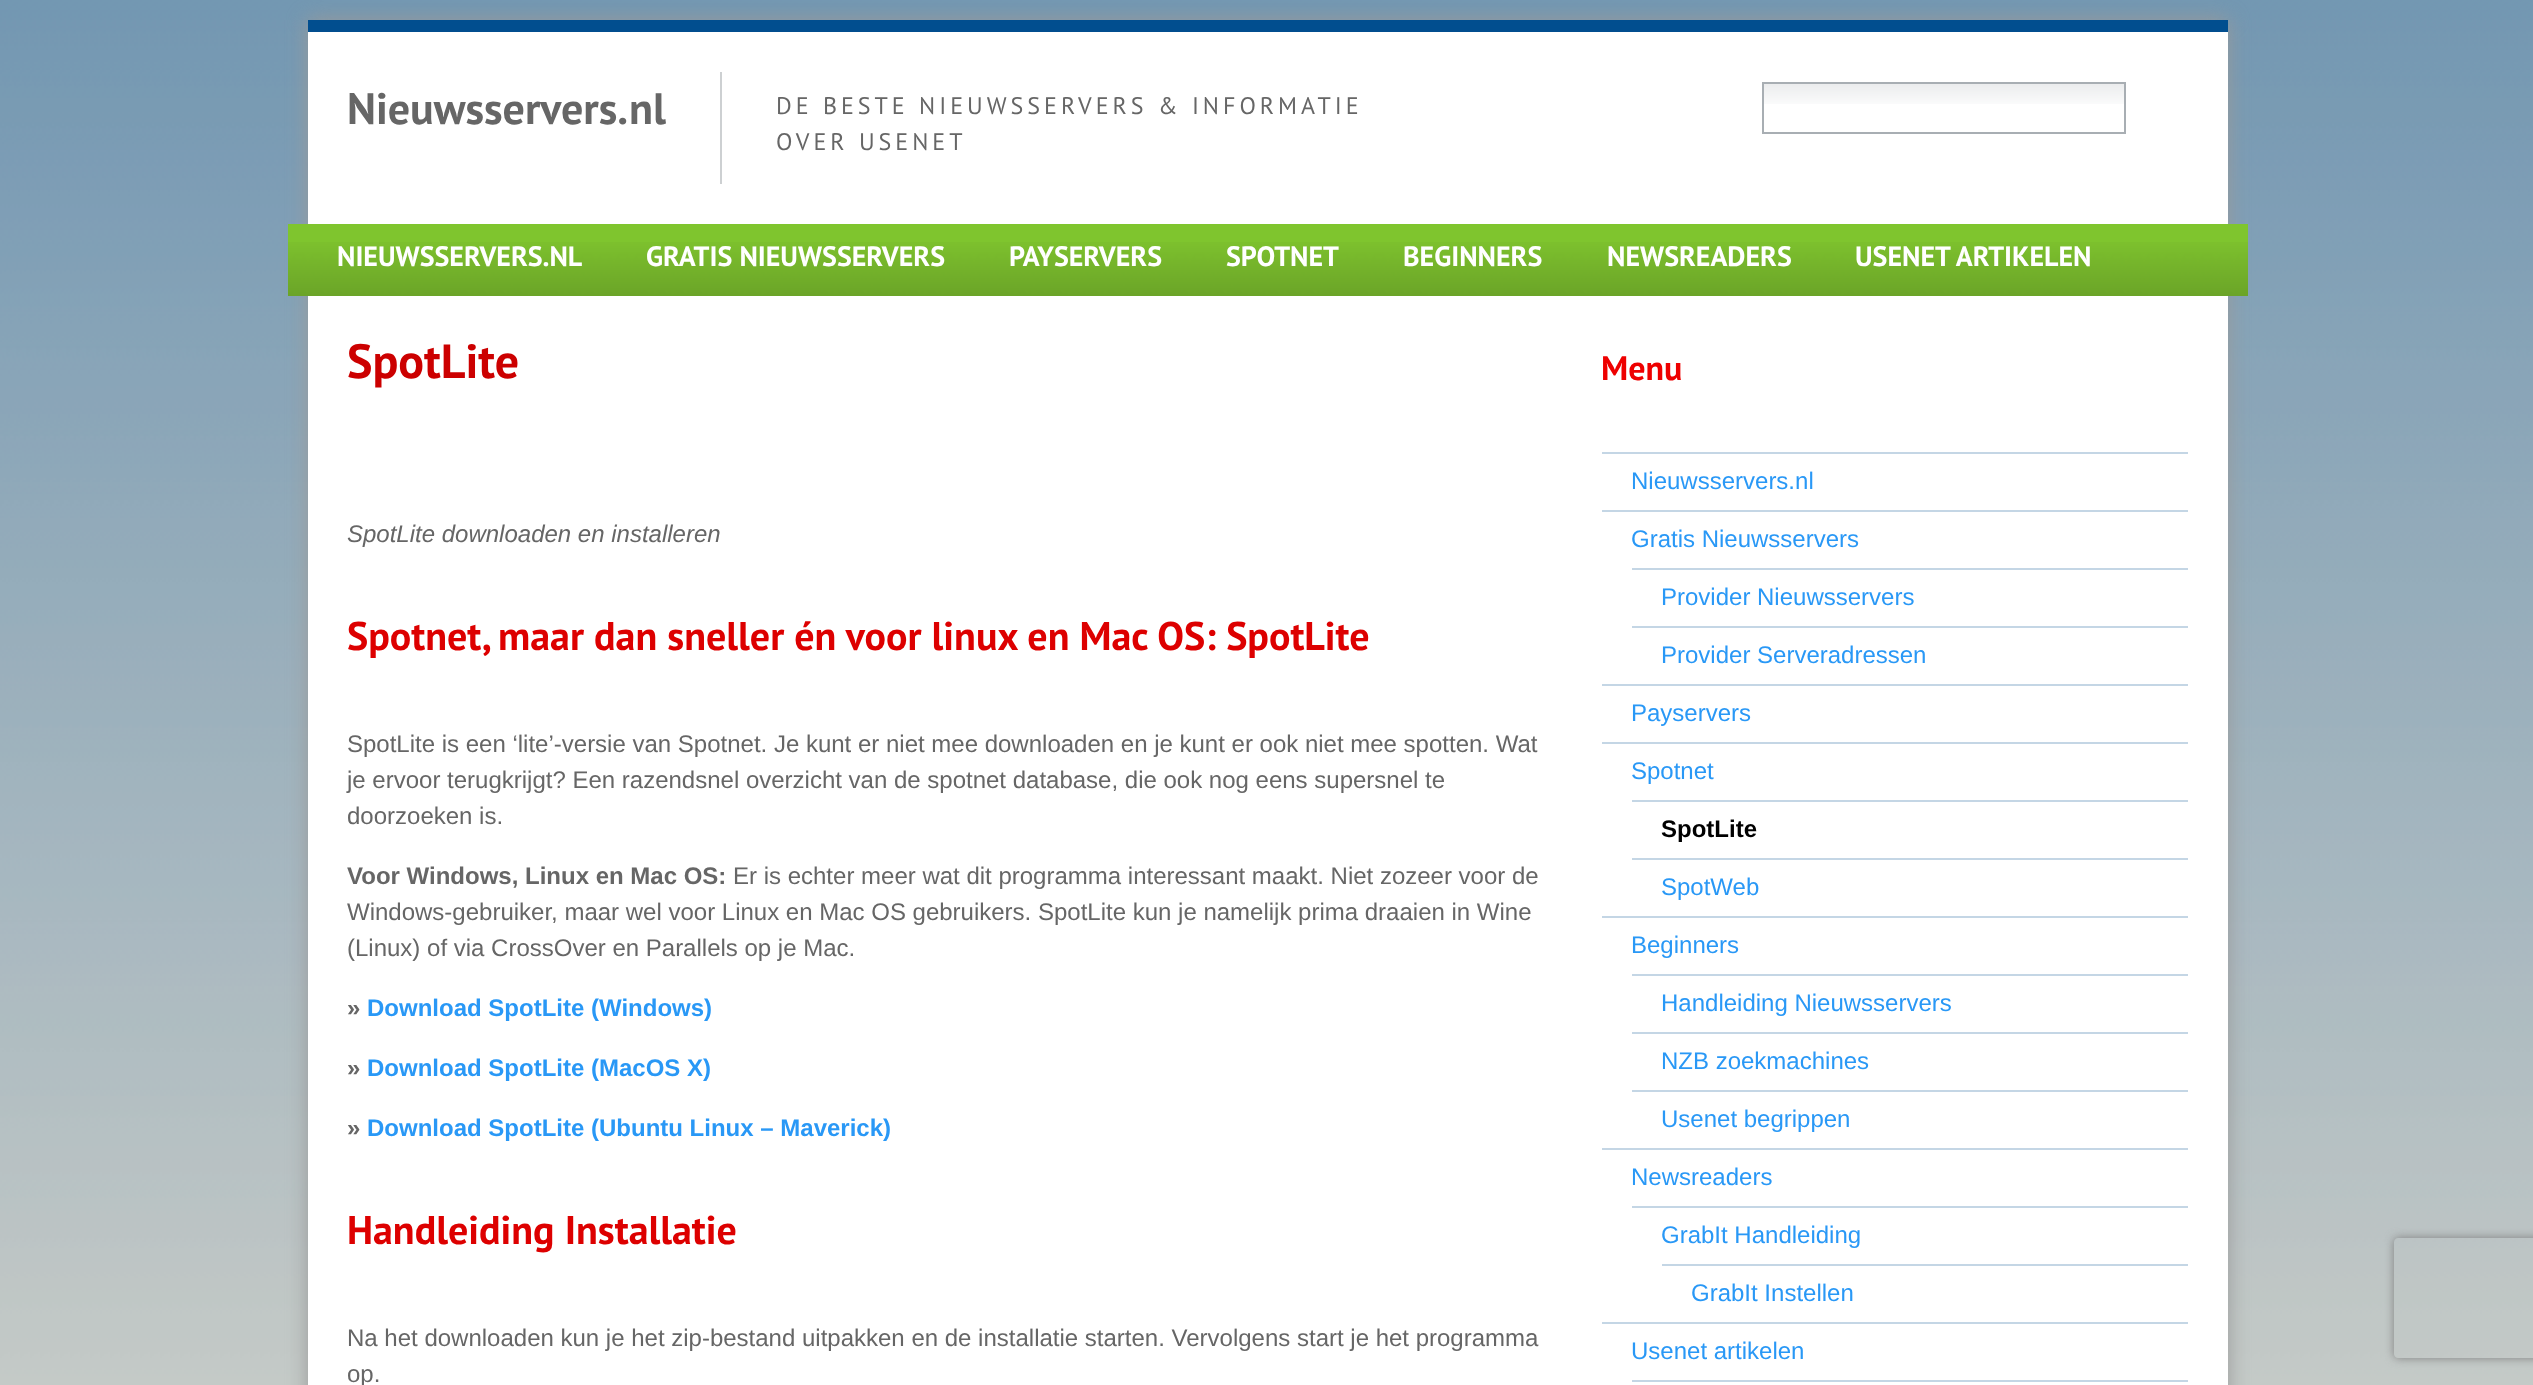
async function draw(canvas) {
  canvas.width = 2533
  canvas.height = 1385
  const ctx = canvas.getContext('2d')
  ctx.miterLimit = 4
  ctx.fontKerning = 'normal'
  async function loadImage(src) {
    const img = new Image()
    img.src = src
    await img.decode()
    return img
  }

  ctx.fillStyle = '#fff'
  ctx.fillRect(0, 0, 2533, 1385)
  ctx.drawImage(await loadImage('image0.png'), 0, 0, 2533, 1385)
  ctx.fillStyle = '#999'
  ctx.filter = 'blur(10px)'
  ctx.beginPath()
  ctx.rect(308, 20, 1920, 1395)
  ctx.fill()
  ctx.filter = 'none'
  ctx.fillStyle = '#fff'
  ctx.fillRect(308, 32, 1920, 1353)
  ctx.fillStyle = '#014e8f'
  ctx.fillRect(308, 20, 1920, 12)
  ctx.font = 'bold 44px PT Sans'
  ctx.fillStyle = '#666'
  ctx.fillText('Nieuwsservers.nl', 347, 124)
  ctx.fillStyle = '#cdd0d2'
  ctx.fillRect(720, 72, 2, 112)
  ctx.letterSpacing = '4px'
  ctx.font = '24px PT Sans'
  ctx.fillStyle = '#666'
  ctx.fillText('DE BESTE NIEUWSSERVERS & INFORMATIE', 776, 114)
  ctx.fillText('OVER USENET', 776, 150)
  ctx.drawImage(await loadImage('image1.png'), 1764, 84, 360, 20)
  ctx.strokeStyle = '#a8aeb3'
  ctx.lineWidth = 2
  ctx.strokeRect(1763, 83, 362, 50)
  ctx.fillStyle = '#7fc52e'
  ctx.fillRect(288, 224, 1960, 18)
  ctx.drawImage(await loadImage('image2.png'), 288, 242, 1960, 54)
  ctx.letterSpacing = '0px'
  ctx.font = 'bold 28px PT Sans'
  ctx.fillStyle = '#fff'
  ctx.fillText('NIEUWSSERVERS.NL', 337, 266)
  ctx.fillText('GRATIS NIEUWSSERVERS', 646, 266)
  ctx.fillText('PAYSERVERS', 1009, 266)
  ctx.fillText('SPOTNET', 1226, 266)
  ctx.fillText('BEGINNERS', 1403, 266)
  ctx.fillText('NEWSREADERS', 1607, 266)
  ctx.fillText('USENET ARTIKELEN', 1855, 266)
  ctx.font = 'bold 48px PT Sans'
  ctx.fillStyle = '#c00'
  ctx.fillText('SpotLite', 347, 378)
  ctx.font = 'italic 24px Liberation Sans'
  ctx.fillStyle = '#666'
  ctx.fillText('SpotLite downloaden en installeren', 347, 542)
  ctx.font = 'bold 40px PT Sans'
  ctx.fillStyle = '#d00'
  ctx.fillText('Spotnet, maar dan sneller én voor linux en Mac OS: SpotLite', 347, 650)
  ctx.font = '24px Liberation Sans'
  ctx.fillStyle = '#666'
  ctx.fillText('SpotLite is een ‘lite’-versie van Spotnet. Je kunt er niet mee downloaden en je kunt er ook niet mee spotten. Wat', 347, 752)
  ctx.fillText('je ervoor terugkrijgt? Een razendsnel overzicht van de spotnet database, die ook nog eens supersnel te', 347, 788)
  ctx.fillText('doorzoeken is.', 347, 824)
  ctx.font = 'bold 24px Liberation Sans'
  ctx.fillText('Voor Windows, Linux en Mac OS:', 347, 884)
  ctx.font = '24px Liberation Sans'
  ctx.fillText('Er is echter meer wat dit programma interessant maakt. Niet zozeer voor de', 733, 884)
  ctx.fillText('Windows-gebruiker, maar wel voor Linux en Mac OS gebruikers. SpotLite kun je namelijk prima draaien in Wine', 347, 920)
  ctx.fillText('(Linux) of via CrossOver en Parallels op je Mac.', 347, 956)
  ctx.font = 'bold 24px Liberation Sans'
  ctx.fillText('»', 347, 1016)
  ctx.fillStyle = '#2998f6'
  ctx.fillText('Download SpotLite (Windows)', 367, 1016)
  ctx.fillStyle = '#666'
  ctx.fillText('»', 347, 1076)
  ctx.fillStyle = '#2998f6'
  ctx.fillText('Download SpotLite (MacOS X)', 367, 1076)
  ctx.fillStyle = '#666'
  ctx.fillText('»', 347, 1136)
  ctx.fillStyle = '#2998f6'
  ctx.fillText('Download SpotLite (Ubuntu Linux – Maverick)', 367, 1136)
  ctx.font = 'bold 40px PT Sans'
  ctx.fillStyle = '#d00'
  ctx.fillText('Handleiding Installatie', 347, 1244)
  ctx.font = '24px Liberation Sans'
  ctx.fillStyle = '#666'
  ctx.fillText('Na het downloaden kun je het zip-bestand uitpakken en de installatie starten. Vervolgens start je het programma', 347, 1346)
  ctx.fillText('op.', 347, 1382)
  ctx.font = 'bold 34px PT Sans'
  ctx.fillStyle = '#e00'
  ctx.fillText('Menu', 1601, 380)
  ctx.fillStyle = '#c4d6e5'
  ctx.fillRect(1602, 452, 586, 2)
  ctx.font = '24px Liberation Sans'
  ctx.fillStyle = '#2998f6'
  ctx.fillText('Nieuwsservers.nl', 1631, 489)
  ctx.fillStyle = '#c4d6e5'
  ctx.fillRect(1602, 510, 586, 2)
  ctx.fillStyle = '#2998f6'
  ctx.fillText('Gratis Nieuwsservers', 1631, 547)
  ctx.fillStyle = '#c4d6e5'
  ctx.fillRect(1632, 568, 556, 2)
  ctx.fillStyle = '#2998f6'
  ctx.fillText('Provider Nieuwsservers', 1661, 605)
  ctx.fillStyle = '#c4d6e5'
  ctx.fillRect(1632, 626, 556, 2)
  ctx.fillStyle = '#2998f6'
  ctx.fillText('Provider Serveradressen', 1661, 663)
  ctx.fillStyle = '#c4d6e5'
  ctx.fillRect(1602, 684, 586, 2)
  ctx.fillStyle = '#2998f6'
  ctx.fillText('Payservers', 1631, 721)
  ctx.fillStyle = '#c4d6e5'
  ctx.fillRect(1602, 742, 586, 2)
  ctx.fillStyle = '#2998f6'
  ctx.fillText('Spotnet', 1631, 779)
  ctx.fillStyle = '#c4d6e5'
  ctx.fillRect(1632, 800, 556, 2)
  ctx.font = 'bold 24px Liberation Sans'
  ctx.fillStyle = '#000'
  ctx.fillText('SpotLite', 1661, 837)
  ctx.fillStyle = '#c4d6e5'
  ctx.fillRect(1632, 858, 556, 2)
  ctx.font = '24px Liberation Sans'
  ctx.fillStyle = '#2998f6'
  ctx.fillText('SpotWeb', 1661, 895)
  ctx.fillStyle = '#c4d6e5'
  ctx.fillRect(1602, 916, 586, 2)
  ctx.fillStyle = '#2998f6'
  ctx.fillText('Beginners', 1631, 953)
  ctx.fillStyle = '#c4d6e5'
  ctx.fillRect(1632, 974, 556, 2)
  ctx.fillStyle = '#2998f6'
  ctx.fillText('Handleiding Nieuwsservers', 1661, 1011)
  ctx.fillStyle = '#c4d6e5'
  ctx.fillRect(1632, 1032, 556, 2)
  ctx.fillStyle = '#2998f6'
  ctx.fillText('NZB zoekmachines', 1661, 1069)
  ctx.fillStyle = '#c4d6e5'
  ctx.fillRect(1632, 1090, 556, 2)
  ctx.fillStyle = '#2998f6'
  ctx.fillText('Usenet begrippen', 1661, 1127)
  ctx.fillStyle = '#c4d6e5'
  ctx.fillRect(1602, 1148, 586, 2)
  ctx.fillStyle = '#2998f6'
  ctx.fillText('Newsreaders', 1631, 1185)
  ctx.fillStyle = '#c4d6e5'
  ctx.fillRect(1632, 1206, 556, 2)
  ctx.fillStyle = '#2998f6'
  ctx.fillText('GrabIt Handleiding', 1661, 1243)
  ctx.fillStyle = '#c4d6e5'
  ctx.fillRect(1662, 1264, 526, 2)
  ctx.fillStyle = '#2998f6'
  ctx.fillText('GrabIt Instellen', 1691, 1301)
  ctx.fillStyle = '#c4d6e5'
  ctx.fillRect(1602, 1322, 586, 2)
  ctx.fillStyle = '#2998f6'
  ctx.fillText('Usenet artikelen', 1631, 1359)
  ctx.fillStyle = '#c4d6e5'
  ctx.fillRect(1632, 1380, 556, 2)
  ctx.save()
  ctx.beginPath()
  ctx.moveTo(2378, 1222)
  ctx.lineTo(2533, 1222)
  ctx.lineTo(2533, 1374)
  ctx.lineTo(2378, 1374)
  ctx.closePath()
  ctx.moveTo(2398, 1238)
  ctx.lineTo(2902, 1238)
  ctx.bezierCurveTo(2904, 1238, 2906, 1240, 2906, 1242)
  ctx.lineTo(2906, 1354)
  ctx.bezierCurveTo(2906, 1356, 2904, 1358, 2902, 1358)
  ctx.lineTo(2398, 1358)
  ctx.bezierCurveTo(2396, 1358, 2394, 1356, 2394, 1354)
  ctx.lineTo(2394, 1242)
  ctx.bezierCurveTo(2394, 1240, 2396, 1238, 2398, 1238)
  ctx.closePath()
  ctx.clip('evenodd')
  ctx.fillStyle = '#808080'
  ctx.filter = 'blur(5px)'
  ctx.beginPath()
  ctx.roundRect(2394, 1238, 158, 120, 4)
  ctx.fill()
  ctx.filter = 'none'
  ctx.restore()
}

draw(document.querySelector('canvas'))
